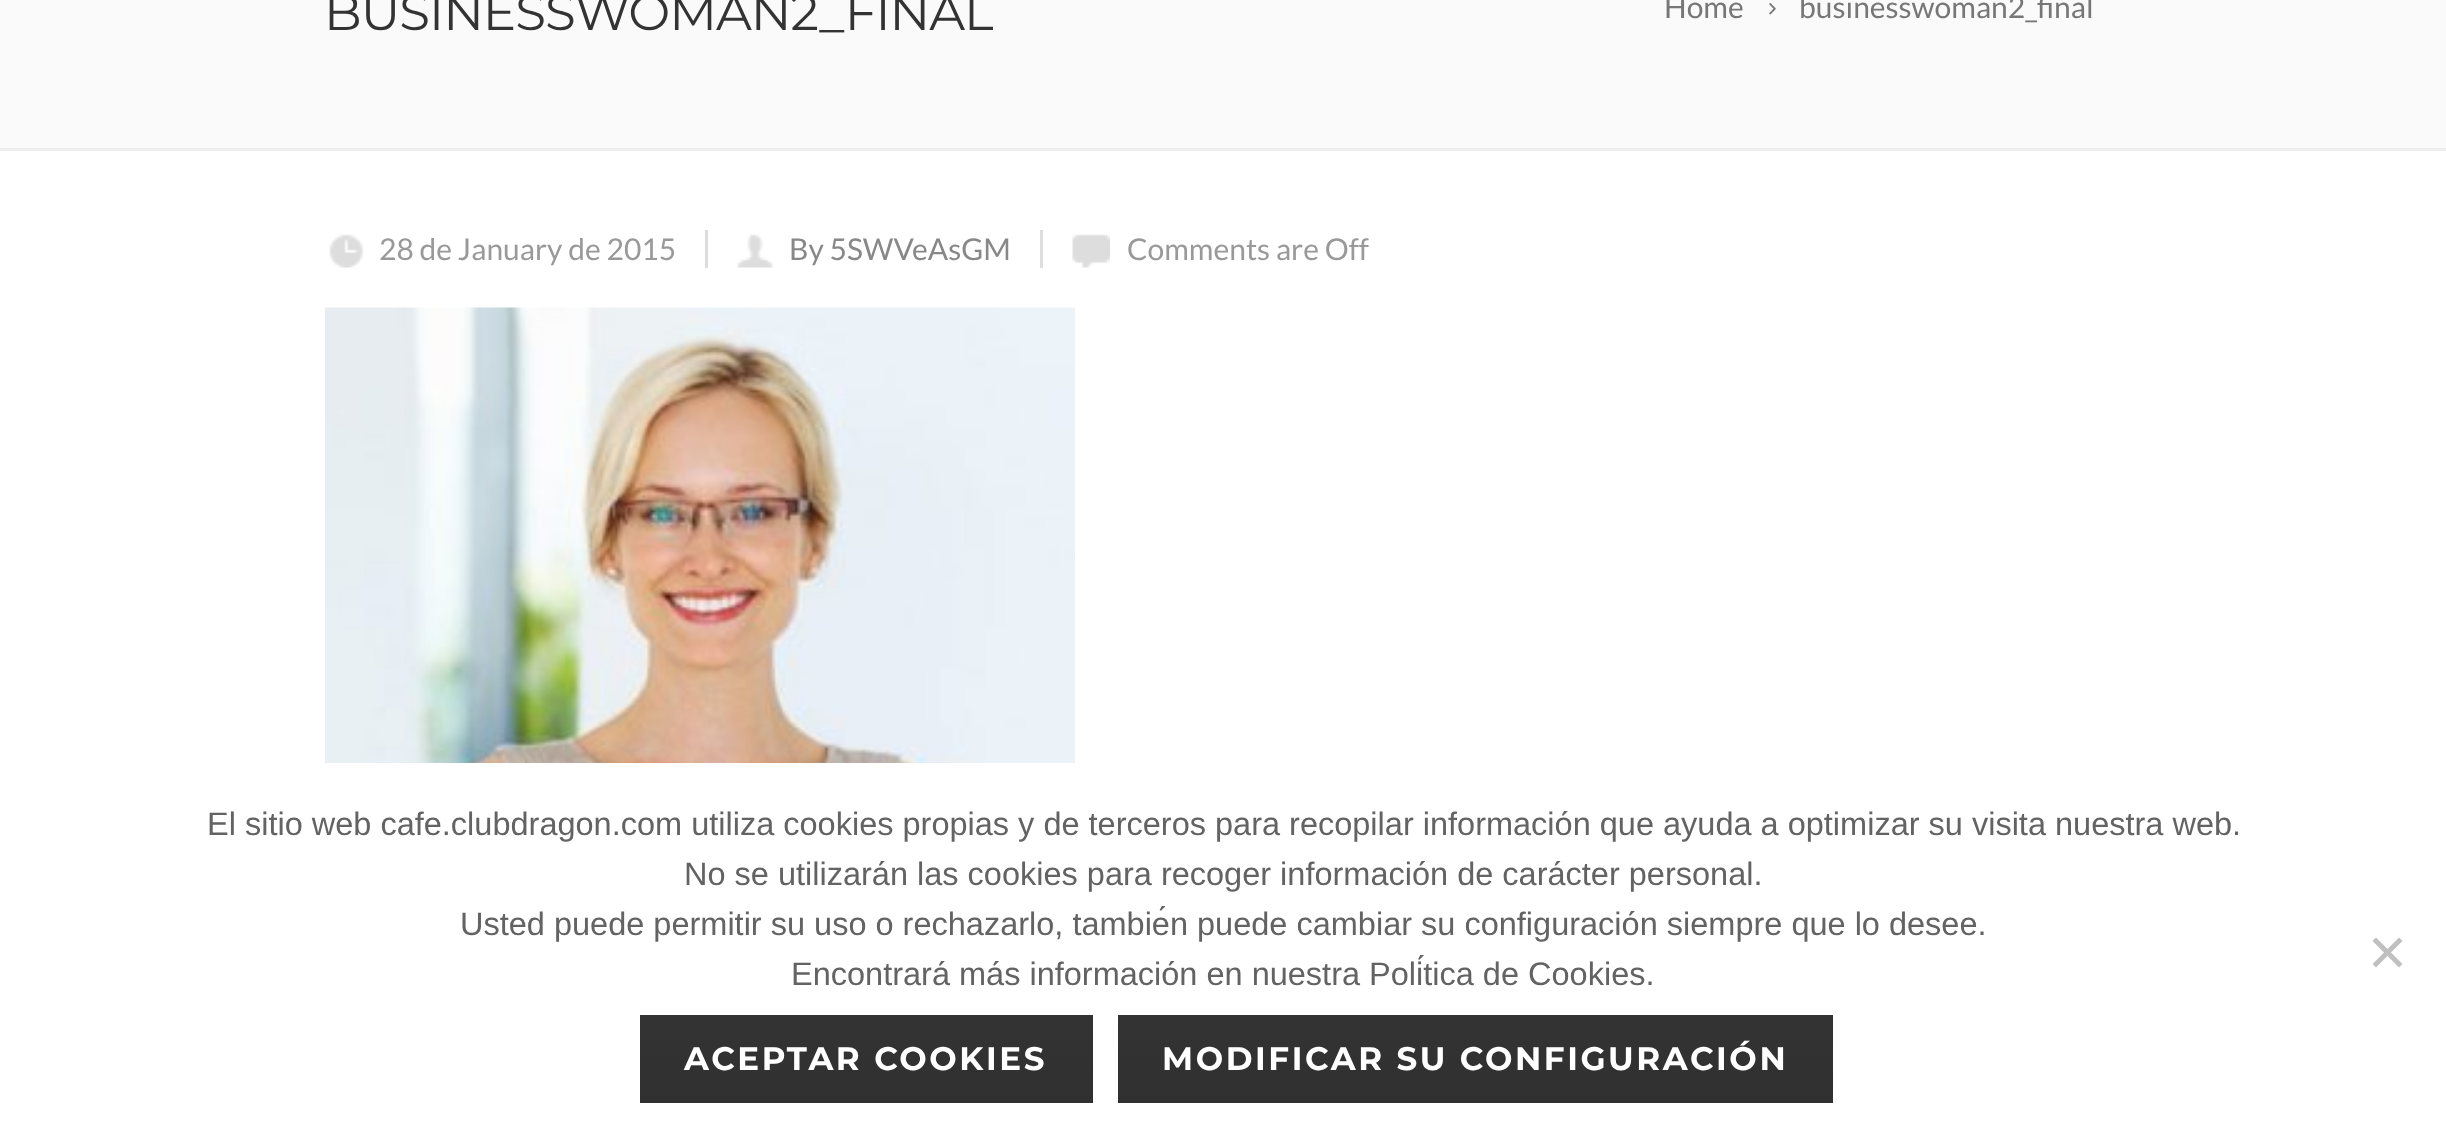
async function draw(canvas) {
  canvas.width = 2446
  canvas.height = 1139
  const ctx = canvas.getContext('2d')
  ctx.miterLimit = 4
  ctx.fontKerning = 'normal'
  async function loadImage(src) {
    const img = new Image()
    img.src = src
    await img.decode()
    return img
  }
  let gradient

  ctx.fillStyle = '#fff'
  ctx.fillRect(0, 0, 2446, 1139)
  ctx.fillStyle = '#fafafa'
  ctx.fillRect(0, 0, 2446, 148)
  ctx.fillStyle = '#eee'
  ctx.fillRect(0, 148, 2446, 3)
  ctx.letterSpacing = '-1px'
  ctx.font = '50px Montserrat'
  ctx.fillStyle = '#333'
  ctx.fillText('BUSINESSWOMAN2_FINAL', 324, 30)
  ctx.letterSpacing = '0px'
  ctx.font = '30px Lato'
  ctx.fillStyle = '#777'
  ctx.fillText('Home', 1664, 18)
  ctx.drawImage(await loadImage('image0.png'), 1769, 3, 7, 12)
  ctx.fillText('businesswoman2_final', 1799, 18)
  ctx.drawImage(await loadImage('image1.png'), 329, 234, 35, 34)
  ctx.fillStyle = '#999'
  ctx.fillText('28 de January de 2015', 379, 260)
  ctx.fillStyle = '#ddd'
  ctx.fillRect(705, 230, 3, 38)
  ctx.drawImage(await loadImage('image2.png'), 737, 234, 37, 34)
  ctx.fillStyle = '#888'
  ctx.fillText('By 5SWVeAsGM', 789, 260)
  ctx.fillStyle = '#ddd'
  ctx.fillRect(1040, 230, 3, 38)
  ctx.drawImage(await loadImage('image3.png'), 1072, 234, 38, 34)
  ctx.fillStyle = '#999'
  ctx.fillText('Comments are Off', 1127, 260)
  ctx.drawImage(await loadImage('image4.png'), 325, 307, 750, 456)
  ctx.font = '32.5px Liberation Sans'
  ctx.fillStyle = '#636363'
  ctx.fillText('El sitio web cafe.clubdragon.com utiliza cookies propias y de terceros para recopilar información que ayuda a optimizar su visita nuestra web.', 207, 835)
  ctx.fillText('No se utilizarán las cookies para recoger información de carácter personal.', 684, 885)
  ctx.fillText('Usted puede permitir su uso o rechazarlo, también puede cambiar su configuración siempre que lo desee.', 460, 935)
  ctx.fillText('Encontrará más información en nuestra Política de Cookies.', 791, 985)
  ctx.fillStyle = '#c0c0c0'
  ctx.beginPath()
  ctx.moveTo(2399, 937.5)
  ctx.lineTo(2402.5, 941)
  ctx.lineTo(2376, 967.5)
  ctx.lineTo(2372.5, 964)
  ctx.closePath()
  ctx.fill()
  ctx.beginPath()
  ctx.moveTo(2372.5, 941)
  ctx.lineTo(2376, 937.5)
  ctx.lineTo(2402.5, 964)
  ctx.lineTo(2399, 967.5)
  ctx.closePath()
  ctx.fill()
  gradient = ctx.createLinearGradient(866, 1015, 866, 1103)
  gradient.addColorStop(0, '#333')
  gradient.addColorStop(1, '#303030')
  ctx.fillStyle = gradient
  ctx.fillRect(640, 1015, 453, 88)
  ctx.letterSpacing = '2.6px'
  ctx.font = 'bold 32.5px Montserrat'
  ctx.fillStyle = '#fff'
  ctx.fillText('ACEPTAR COOKIES', 684, 1070)
  gradient = ctx.createLinearGradient(1475, 1015, 1475, 1103)
  gradient.addColorStop(0, '#333')
  gradient.addColorStop(1, '#303030')
  ctx.fillStyle = gradient
  ctx.fillRect(1118, 1015, 715, 88)
  ctx.fillStyle = '#fff'
  ctx.fillText('MODIFICAR SU CONFIGURACIÓN', 1162, 1070)
}

draw(document.querySelector('canvas'))
